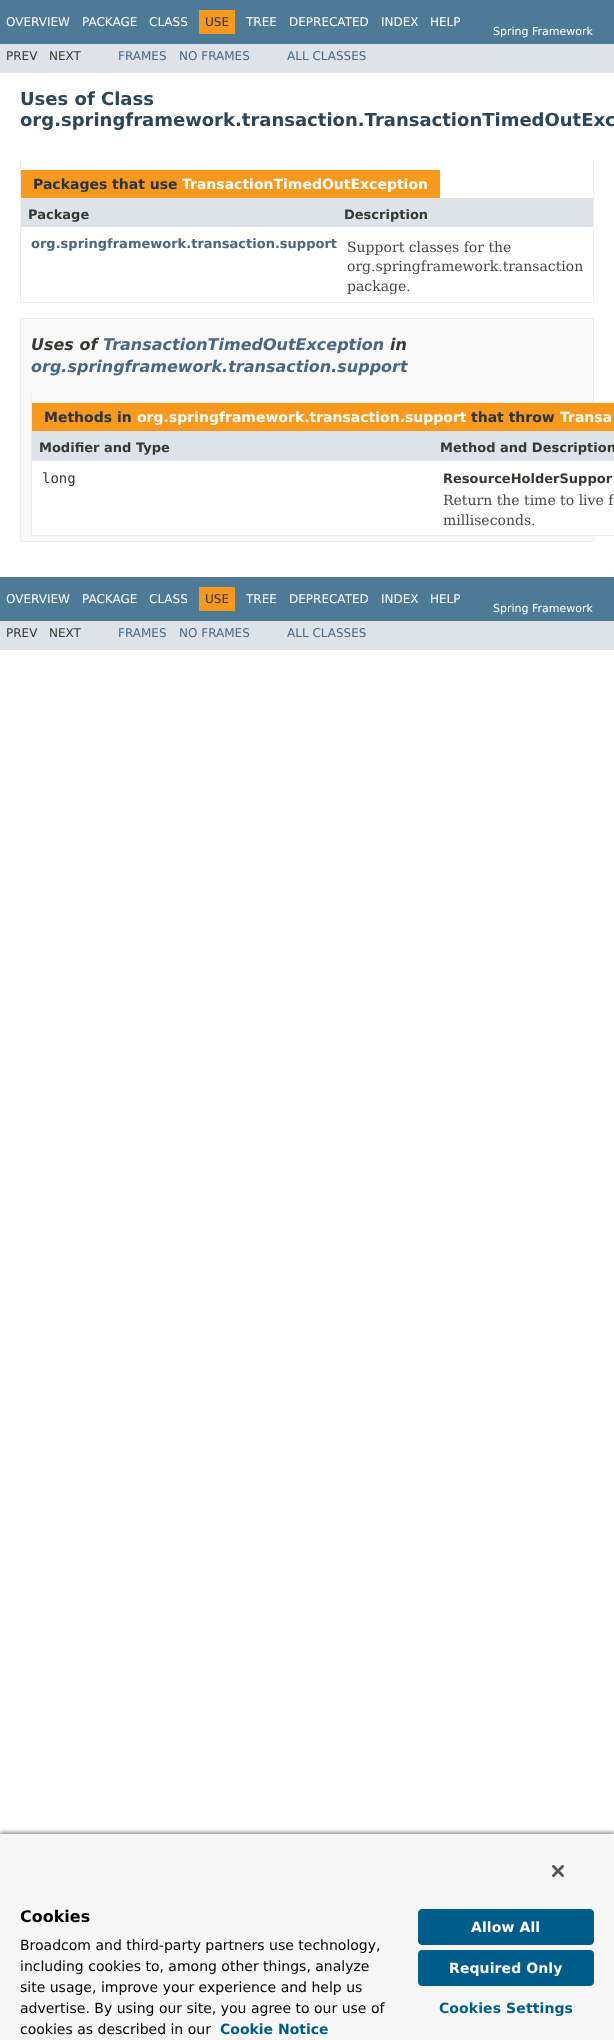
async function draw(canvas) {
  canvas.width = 614
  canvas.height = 2040
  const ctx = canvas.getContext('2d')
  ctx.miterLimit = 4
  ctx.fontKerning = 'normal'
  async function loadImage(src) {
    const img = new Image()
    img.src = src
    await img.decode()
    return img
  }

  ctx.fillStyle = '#fff'
  ctx.fillRect(0, 0, 614, 2040)
  ctx.fillStyle = '#4d7a97'
  ctx.fillRect(0, 0, 614, 44)
  ctx.font = '12px DejaVu Sans'
  ctx.fillStyle = '#fff'
  ctx.fillText('OVERVIEW', 6, 26)
  ctx.fillText('PACKAGE', 82, 26)
  ctx.fillText('CLASS', 149, 26)
  ctx.fillStyle = '#f8981d'
  ctx.fillRect(199, 10, 36, 24)
  ctx.fillStyle = '#253441'
  ctx.fillText('USE', 205, 26)
  ctx.fillStyle = '#fff'
  ctx.fillText('TREE', 246, 26)
  ctx.fillText('DEPRECATED', 289, 26)
  ctx.fillText('INDEX', 381, 26)
  ctx.fillText('HELP', 430, 26)
  ctx.font = '11px DejaVu Sans'
  ctx.fillText('Spring Framework', 493, 35)
  ctx.fillStyle = '#dee3e9'
  ctx.fillRect(0, 44, 614, 29)
  ctx.font = '12px DejaVu Sans'
  ctx.fillStyle = '#353833'
  ctx.fillText('PREV', 6, 60)
  ctx.fillText('NEXT', 49, 60)
  ctx.fillStyle = '#4a6782'
  ctx.fillText('FRAMES', 118, 60)
  ctx.fillText('NO FRAMES', 179, 60)
  ctx.fillText('ALL CLASSES', 287, 60)
  ctx.font = 'bold 18px DejaVu Sans'
  ctx.fillStyle = '#2c4557'
  ctx.fillText('Uses of Class', 20, 105)
  ctx.fillText('org.springframework.transaction.TransactionTimedOutExc', 20, 126)
  ctx.fillStyle = '#eee'
  ctx.fillRect(593, 160, 1, 143)
  ctx.fillRect(20, 302, 574, 1)
  ctx.fillRect(20, 160, 1, 143)
  ctx.fillStyle = '#f8981d'
  ctx.fillRect(21, 170, 419, 28)
  ctx.font = 'bold 14px DejaVu Sans'
  ctx.fillStyle = '#253441'
  ctx.fillText('Packages that use', 33, 189)
  ctx.fillStyle = '#fff'
  ctx.fillText('TransactionTimedOutException', 182, 189)
  ctx.fillStyle = '#dee3e9'
  ctx.fillRect(21, 198, 572, 29)
  ctx.font = 'bold 13px DejaVu Sans'
  ctx.fillStyle = '#353833'
  ctx.fillText('Package', 28, 219)
  ctx.fillText('Description', 344, 219)
  ctx.fillStyle = '#4a6782'
  ctx.fillText('org.springframework.transaction.support', 31, 248)
  ctx.font = '14px DejaVu Serif'
  ctx.fillStyle = '#474747'
  ctx.fillText('Support classes for the', 347, 252)
  ctx.fillText('org.springframework.transaction', 347, 271)
  ctx.fillText('package.', 347, 291)
  ctx.fillStyle = '#f8f8f8'
  ctx.beginPath()
  ctx.rect(20.5, 318.5, 573, 223)
  ctx.fill()
  ctx.strokeStyle = '#ededed'
  ctx.stroke()
  ctx.font = 'italic bold 16px DejaVu Sans'
  ctx.fillStyle = '#353833'
  ctx.fillText('Uses of', 31, 350)
  ctx.fillStyle = '#4a6782'
  ctx.fillText('TransactionTimedOutException', 103, 350)
  ctx.fillStyle = '#353833'
  ctx.fillText('in', 390, 350)
  ctx.fillStyle = '#4a6782'
  ctx.fillText('org.springframework.transaction.support', 31, 372)
  ctx.fillStyle = '#eee'
  ctx.fillRect(31, 535, 583, 1)
  ctx.fillRect(31, 393, 1, 143)
  ctx.fillStyle = '#f8981d'
  ctx.fillRect(32, 403, 582, 28)
  ctx.font = 'bold 14px DejaVu Sans'
  ctx.fillStyle = '#253441'
  ctx.fillText('Methods in', 44, 422)
  ctx.fillStyle = '#fff'
  ctx.fillText('org.springframework.transaction.support', 137, 422)
  ctx.fillStyle = '#253441'
  ctx.fillText('that throw', 471, 422)
  ctx.fillStyle = '#fff'
  ctx.fillText('Transa', 560, 422)
  ctx.fillStyle = '#dee3e9'
  ctx.fillRect(32, 431, 582, 30)
  ctx.font = 'bold 13px DejaVu Sans'
  ctx.fillStyle = '#353833'
  ctx.fillText('Modifier and Type', 39, 452)
  ctx.fillText('Method and Description', 440, 452)
  ctx.fillStyle = '#fff'
  ctx.fillRect(32, 461, 562, 74)
  ctx.font = '14px DejaVu Sans Mono'
  ctx.fillStyle = '#353833'
  ctx.fillText('long', 42, 483)
  ctx.font = 'bold 13px DejaVu Sans'
  ctx.fillText('ResourceHolderSuppor', 443, 483)
  ctx.font = '14px DejaVu Serif'
  ctx.fillStyle = '#474747'
  ctx.fillText('Return the time to live f', 443, 505)
  ctx.fillText('milliseconds.', 443, 525)
  ctx.fillStyle = '#4d7a97'
  ctx.fillRect(0, 577, 614, 44)
  ctx.font = '12px DejaVu Sans'
  ctx.fillStyle = '#fff'
  ctx.fillText('OVERVIEW', 6, 603)
  ctx.fillText('PACKAGE', 82, 603)
  ctx.fillText('CLASS', 149, 603)
  ctx.fillStyle = '#f8981d'
  ctx.fillRect(199, 587, 36, 24)
  ctx.fillStyle = '#253441'
  ctx.fillText('USE', 205, 603)
  ctx.fillStyle = '#fff'
  ctx.fillText('TREE', 246, 603)
  ctx.fillText('DEPRECATED', 289, 603)
  ctx.fillText('INDEX', 381, 603)
  ctx.fillText('HELP', 430, 603)
  ctx.font = '11px DejaVu Sans'
  ctx.fillText('Spring Framework', 493, 612)
  ctx.fillStyle = '#dee3e9'
  ctx.fillRect(0, 621, 614, 29)
  ctx.font = '12px DejaVu Sans'
  ctx.fillStyle = '#353833'
  ctx.fillText('PREV', 6, 637)
  ctx.fillText('NEXT', 49, 637)
  ctx.fillStyle = '#4a6782'
  ctx.fillText('FRAMES', 118, 637)
  ctx.fillText('NO FRAMES', 179, 637)
  ctx.fillText('ALL CLASSES', 287, 637)
  ctx.fillStyle = '#00000059'
  ctx.filter = 'blur(2px)'
  ctx.beginPath()
  ctx.rect(0, 1832, 614, 208)
  ctx.fill()
  ctx.filter = 'none'
  ctx.fillStyle = '#00000033'
  ctx.filter = 'blur(2px)'
  ctx.beginPath()
  ctx.rect(0, 1834, 614, 206)
  ctx.fill()
  ctx.filter = 'none'
  ctx.fillStyle = '#f6f6f6'
  ctx.fillRect(0, 1834, 614, 206)
  ctx.drawImage(await loadImage('image0.png'), 552, 1865, 12, 12)
  ctx.font = 'bold 16px DejaVu Sans'
  ctx.fillStyle = '#000'
  ctx.fillText('Cookies', 20, 1922)
  ctx.font = '14px DejaVu Sans'
  ctx.fillText('Broadcom and third-party partners use technology,', 20, 1950)
  ctx.fillText('including cookies to, among other things, analyze', 20, 1971)
  ctx.fillText('site usage, improve your experience and help us', 20, 1992)
  ctx.fillText('advertise. By using our site, you agree to our use of', 20, 2013)
  ctx.fillText('cookies as described in our', 20, 2034)
  ctx.font = 'bold 14px DejaVu Sans'
  ctx.fillStyle = '#005c8a'
  ctx.fillText('Cookie Notice', 220, 2034)
  ctx.beginPath()
  ctx.roundRect(418.5, 1909.5, 175, 35, 3.5)
  ctx.fill()
  ctx.strokeStyle = '#005c8a'
  ctx.stroke()
  ctx.letterSpacing = '0.1px'
  ctx.fillStyle = '#fff'
  ctx.fillText('Allow All', 471, 1932)
  ctx.fillStyle = '#005c8a'
  ctx.beginPath()
  ctx.roundRect(418.5, 1950.5, 175, 35, 3.5)
  ctx.fill()
  ctx.stroke()
  ctx.fillStyle = '#fff'
  ctx.fillText('Required Only', 449, 1973)
  ctx.fillStyle = '#005c8a'
  ctx.fillText('Cookies Settings', 439, 2013)
}

draw(document.querySelector('canvas'))
